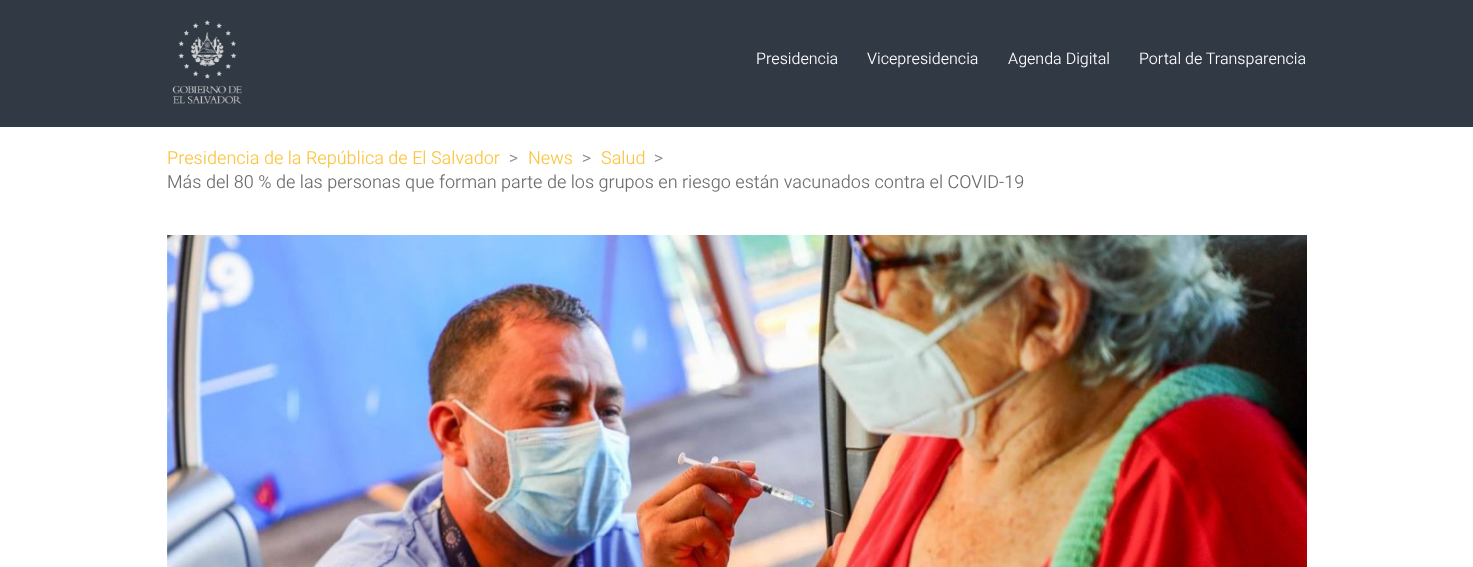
async function draw(canvas) {
  canvas.width = 1473
  canvas.height = 567
  const ctx = canvas.getContext('2d')
  ctx.miterLimit = 4
  ctx.fontKerning = 'normal'
  async function loadImage(src) {
    const img = new Image()
    img.src = src
    await img.decode()
    return img
  }

  ctx.fillStyle = '#fff'
  ctx.fillRect(0, 0, 1473, 567)
  ctx.fillStyle = '#313945'
  ctx.fillRect(0, 0, 1473, 127)
  ctx.drawImage(await loadImage('image0.png'), 172, 20, 70, 84)
  ctx.font = '300 16px Heebo'
  ctx.fillStyle = '#fff'
  ctx.fillText('Presidencia', 756, 64)
  ctx.fillText('Vicepresidencia', 867, 64)
  ctx.fillText('Agenda Digital', 1008, 64)
  ctx.fillText('Portal de Transparencia', 1139, 64)
  ctx.font = '300 18px Heebo'
  ctx.fillStyle = '#fbc441'
  ctx.fillText('Presidencia de la República de El Salvador', 167, 164)
  ctx.fillStyle = '#888'
  ctx.fillText('>', 509, 164)
  ctx.fillStyle = '#fbc441'
  ctx.fillText('News', 528, 164)
  ctx.fillStyle = '#888'
  ctx.fillText('>', 582, 164)
  ctx.fillStyle = '#fbc441'
  ctx.fillText('Salud', 601, 164)
  ctx.fillStyle = '#888'
  ctx.fillText('>', 654, 164)
  ctx.fillStyle = '#6d6d6d'
  ctx.fillText('Más del 80 % de las personas que forman parte de los grupos en riesgo están vacunados contra el COVID-19', 167, 188)
  ctx.drawImage(await loadImage('image1.png'), 167, 235, 1140, 332)
}

draw(document.querySelector('canvas'))
